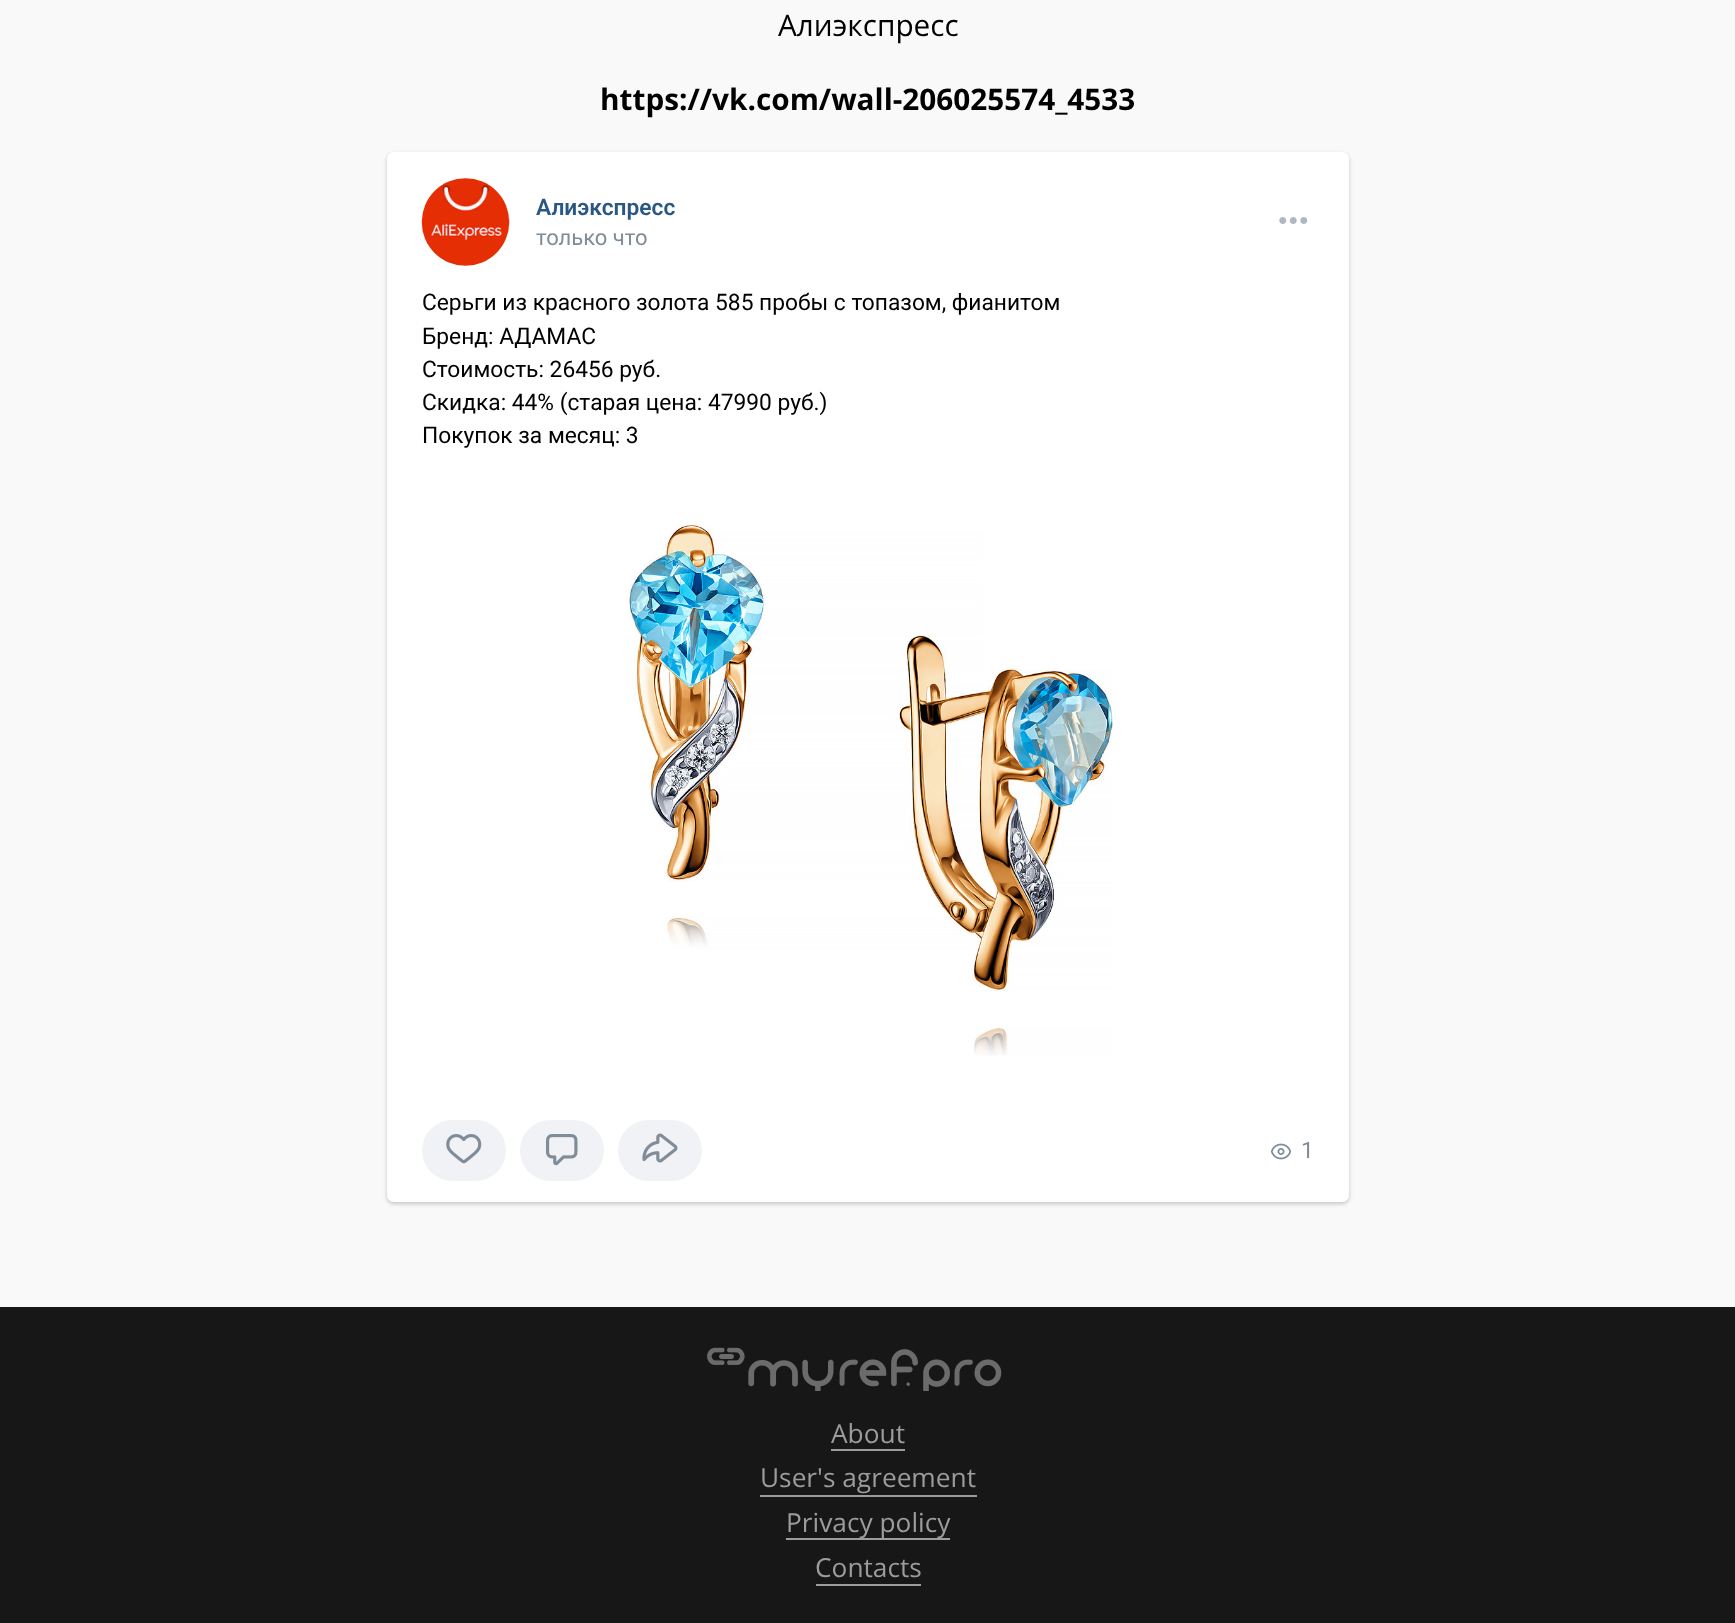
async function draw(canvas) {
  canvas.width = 1735
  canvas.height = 1623
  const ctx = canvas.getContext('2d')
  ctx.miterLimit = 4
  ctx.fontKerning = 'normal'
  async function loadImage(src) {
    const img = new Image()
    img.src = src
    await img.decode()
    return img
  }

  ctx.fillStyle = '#f9f9f9'
  ctx.fillRect(0, 0, 1735, 1623)
  ctx.font = '29.75px Open Sans'
  ctx.fillStyle = '#000'
  ctx.fillText('Алиэкспресс', 778, 36)
  ctx.font = 'bold 29.75px Open Sans'
  ctx.fillText('https://vk.com/wall-206025574_4533', 600, 110)
  ctx.fillStyle = '#00000033'
  ctx.filter = 'blur(2px)'
  ctx.beginPath()
  ctx.roundRect(387, 154, 962, 1050, 7)
  ctx.fill()
  ctx.filter = 'none'
  ctx.fillStyle = '#fff'
  ctx.beginPath()
  ctx.roundRect(387, 152, 962, 1050, 7)
  ctx.fill()
  ctx.drawImage(await loadImage('image0.png'), 421, 178, 89, 88)
  ctx.font = '600 22.75px Roboto'
  ctx.fillStyle = '#2a5885'
  ctx.fillText('Алиэкспресс', 536, 215)
  ctx.font = '22px Roboto'
  ctx.fillStyle = '#818c99'
  ctx.fillText('только что', 536, 245)
  ctx.drawImage(await loadImage('image1.png'), 1279, 217, 29, 7)
  ctx.font = '22.75px Roboto'
  ctx.fillStyle = '#000'
  ctx.fillText('Серьги из красного золота 585 пробы с топазом, фианитом', 422, 310)
  ctx.fillText('Бренд: АДАМАС', 422, 344)
  ctx.fillText('Стоимость: 26456 руб.', 422, 377)
  ctx.fillText('Скидка: 44% (старая цена: 47990 руб.)', 422, 410)
  ctx.fillText('Покупок за месяц: 3', 422, 443)
  ctx.drawImage(await loadImage('image2.png'), 629, 524, 484, 532)
  ctx.fillStyle = '#f0f2f5'
  ctx.beginPath()
  ctx.roundRect(422, 1120, 84, 61, 30.5)
  ctx.fill()
  ctx.drawImage(await loadImage('image3.png'), 446, 1134, 36, 30)
  ctx.beginPath()
  ctx.roundRect(520, 1120, 84, 61, 30.5)
  ctx.fill()
  ctx.drawImage(await loadImage('image4.png'), 546, 1134, 32, 32)
  ctx.beginPath()
  ctx.roundRect(618, 1120, 84, 61, 30.5)
  ctx.fill()
  ctx.drawImage(await loadImage('image5.png'), 642, 1133, 36, 30)
  ctx.drawImage(await loadImage('image6.png'), 1271, 1143, 21, 17)
  ctx.fillStyle = '#818c99'
  ctx.fillText('1', 1301, 1158)
  ctx.fillStyle = '#171717'
  ctx.fillRect(0, 1307, 1735, 316)
  ctx.drawImage(await loadImage('image7.png'), 707, 1347, 295, 44)
  ctx.fillStyle = '#9c9c9c'
  ctx.fillRect(831, 1449, 74, 2)
  ctx.font = '26.25px Open Sans'
  ctx.fillText('About', 831, 1443)
  ctx.fillRect(760, 1495, 217, 2)
  ctx.fillText('User\'s agreement', 760, 1487)
  ctx.fillRect(786, 1538, 164, 2)
  ctx.fillText('Privacy policy', 786, 1532)
  ctx.fillRect(816, 1584, 105, 2)
  ctx.fillText('Contacts', 815, 1577)
}

draw(document.querySelector('canvas'))
